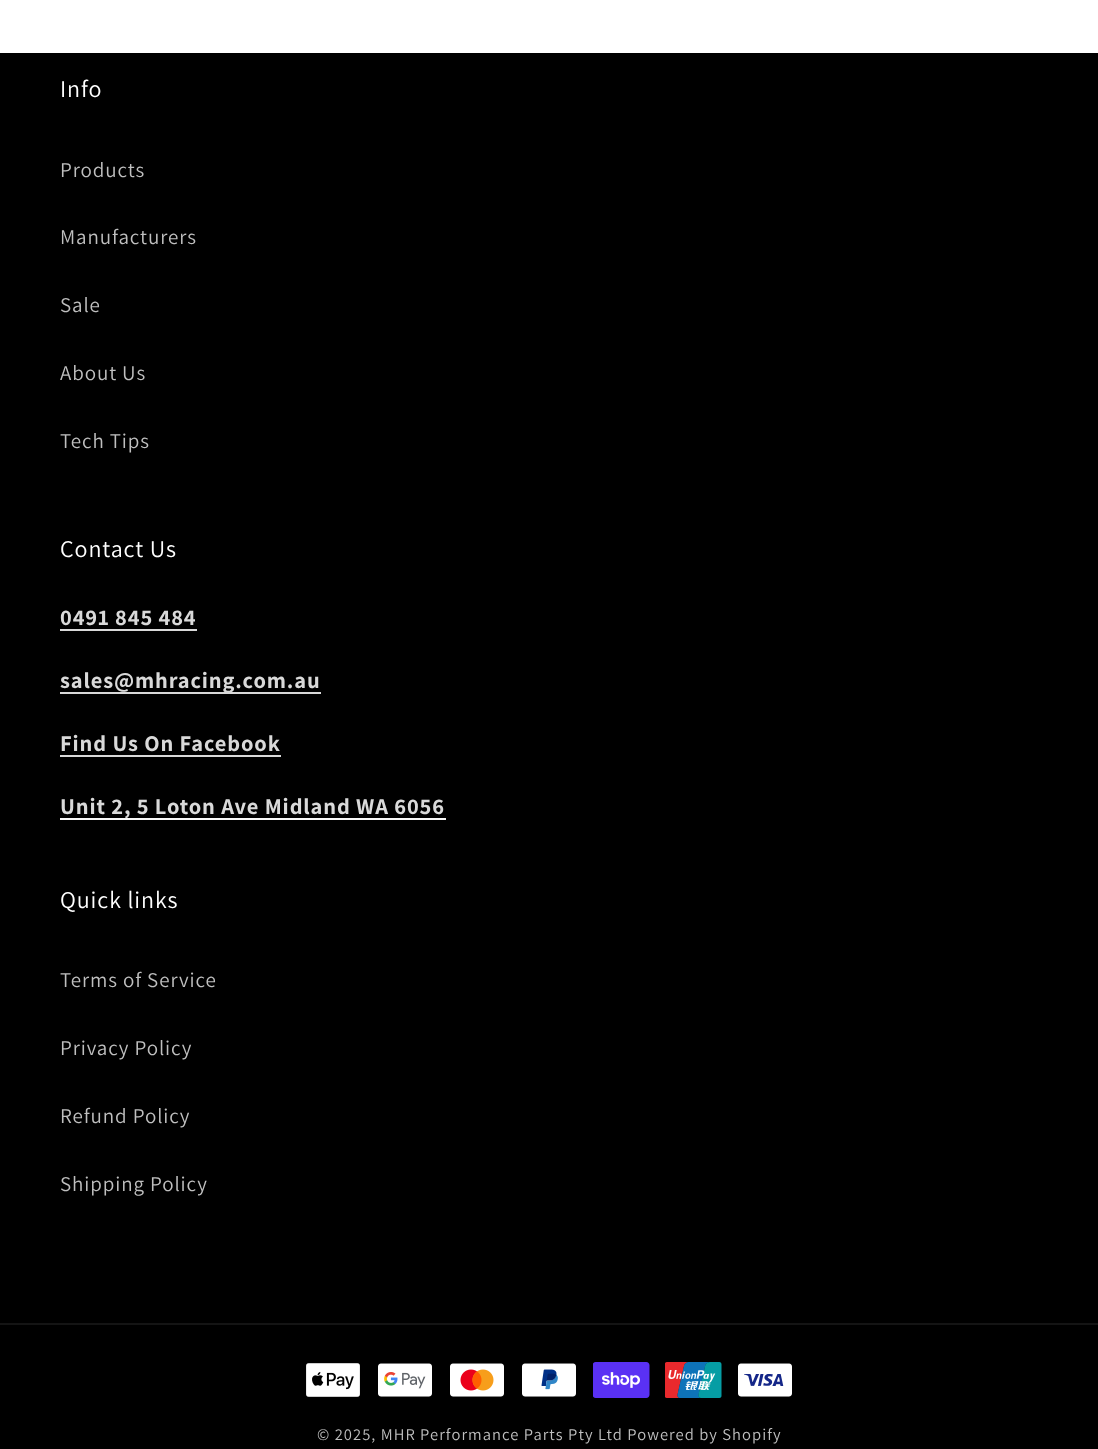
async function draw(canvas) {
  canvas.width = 1098
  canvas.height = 1449
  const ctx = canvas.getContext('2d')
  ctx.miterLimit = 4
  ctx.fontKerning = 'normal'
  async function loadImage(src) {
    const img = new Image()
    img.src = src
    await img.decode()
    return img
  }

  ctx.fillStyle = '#fff'
  ctx.fillRect(0, 0, 1098, 1449)
  ctx.fillStyle = '#000'
  ctx.fillRect(0, 53, 1098, 1396)
  ctx.letterSpacing = '0.9px'
  ctx.font = '24px Assistant'
  ctx.fillStyle = '#fff'
  ctx.fillText('Info', 60, 97)
  ctx.font = '21px Assistant'
  ctx.fillStyle = '#bfbfbf'
  ctx.fillText('Products', 60, 177)
  ctx.fillText('Manufacturers', 60, 244)
  ctx.fillText('Sale', 60, 312)
  ctx.fillText('About Us', 60, 380)
  ctx.fillText('Tech Tips', 60, 448)
  ctx.font = '24px Assistant'
  ctx.fillStyle = '#fff'
  ctx.fillText('Contact Us', 60, 557)
  ctx.font = 'bold 22.5px Assistant'
  ctx.fillStyle = '#d9d9d9'
  ctx.fillText('0491 845 484', 60, 625)
  ctx.fillRect(60, 629, 137, 2)
  ctx.fillRect(60, 692, 261, 2)
  ctx.fillText('sales@mhracing.com.au', 60, 688)
  ctx.fillText('Find Us On Facebook', 60, 751)
  ctx.fillRect(60, 755, 221, 2)
  ctx.fillStyle = '#f9f9f9'
  ctx.fillRect(60, 818, 386, 2)
  ctx.fillStyle = '#d9d9d9'
  ctx.fillText('Unit 2, 5 Loton Ave Midland WA 6056', 60, 814)
  ctx.font = '24px Assistant'
  ctx.fillStyle = '#fff'
  ctx.fillText('Quick links', 60, 908)
  ctx.font = '21px Assistant'
  ctx.fillStyle = '#bfbfbf'
  ctx.fillText('Terms of Service', 60, 987)
  ctx.fillText('Privacy Policy', 60, 1055)
  ctx.fillText('Refund Policy', 60, 1123)
  ctx.fillText('Shipping Policy', 60, 1191)
  ctx.fillStyle = '#141414'
  ctx.fillRect(0, 1323, 1098, 2)
  ctx.drawImage(await loadImage('image0.png'), 306, 1363, 54, 34)
  ctx.drawImage(await loadImage('image1.png'), 378, 1363, 54, 34)
  ctx.drawImage(await loadImage('image2.png'), 450, 1363, 54, 34)
  ctx.drawImage(await loadImage('image3.png'), 522, 1363, 54, 34)
  ctx.drawImage(await loadImage('image4.png'), 593, 1362, 57, 36)
  ctx.drawImage(await loadImage('image5.png'), 665, 1362, 57, 36)
  ctx.drawImage(await loadImage('image6.png'), 738, 1363, 54, 34)
  ctx.letterSpacing = '1.05px'
  ctx.font = '16.5px Assistant'
  ctx.fillStyle = '#bfbfbf'
  ctx.fillText('© 2025, MHR Performance Parts Pty Ltd Powered by Shopify', 317, 1440)
}

draw(document.querySelector('canvas'))
